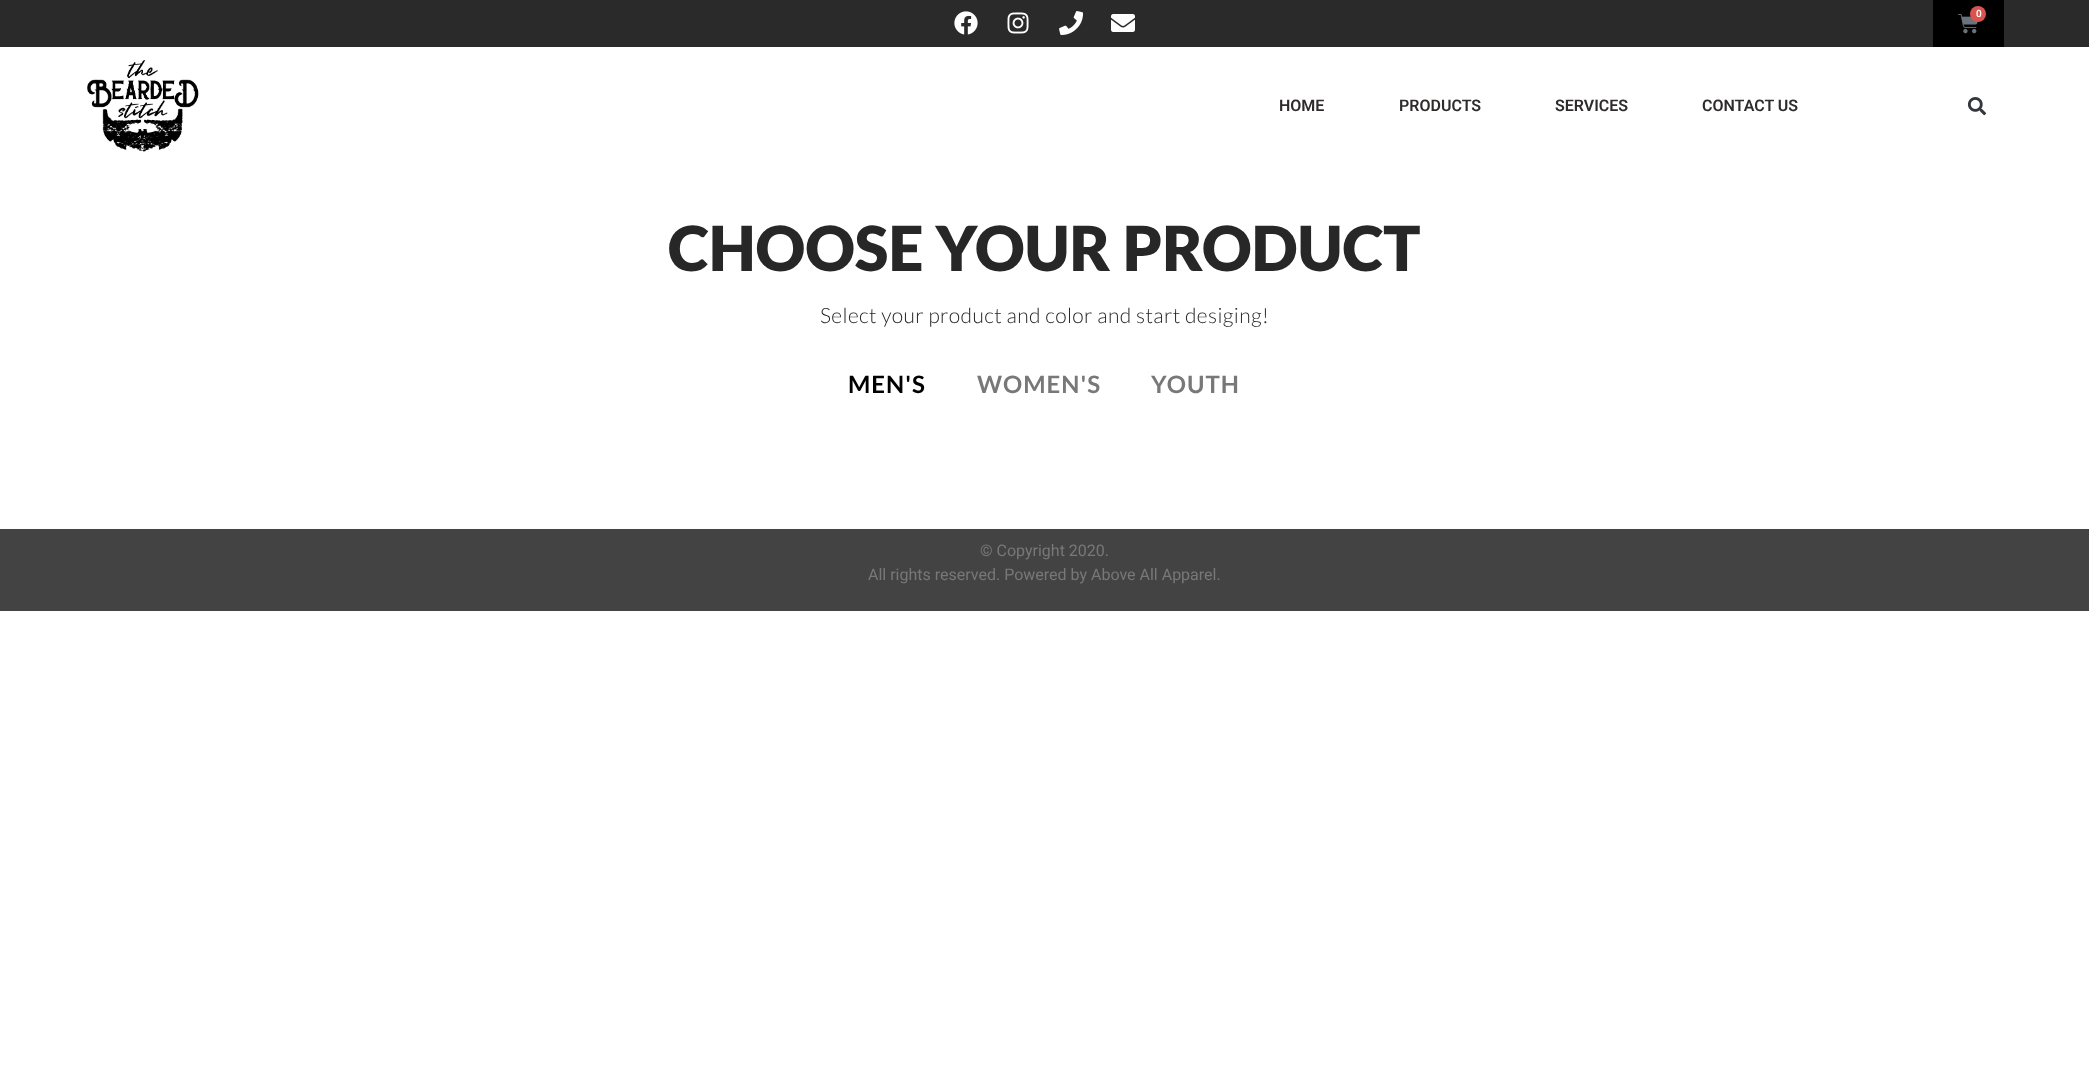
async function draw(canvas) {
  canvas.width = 2089
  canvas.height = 1092
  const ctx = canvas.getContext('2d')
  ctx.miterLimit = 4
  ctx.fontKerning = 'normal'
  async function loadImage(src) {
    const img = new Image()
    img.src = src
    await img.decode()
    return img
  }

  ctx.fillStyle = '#fff'
  ctx.fillRect(0, 0, 2089, 1092)
  ctx.fillStyle = '#2b2a2a'
  ctx.fillRect(0, 0, 2089, 47)
  ctx.drawImage(await loadImage('image0.png'), 954, 11, 24, 24)
  ctx.drawImage(await loadImage('image1.png'), 1007, 12, 22, 22)
  ctx.drawImage(await loadImage('image2.png'), 1059, 11, 25, 24)
  ctx.drawImage(await loadImage('image3.png'), 1111, 14, 24, 18)
  ctx.fillStyle = '#000'
  ctx.fillRect(1933, 0, 71, 47)
  ctx.drawImage(await loadImage('image4.png'), 1958, 14, 20, 20)
  ctx.fillStyle = '#d9534f'
  ctx.beginPath()
  ctx.arc(1978, 14, 8, 0, 2 * Math.PI)
  ctx.fill()
  ctx.font = '600 10px Roboto'
  ctx.fillStyle = '#fff'
  ctx.fillText('0', 1976, 17)
  ctx.drawImage(await loadImage('image5.png'), 87, 60, 112, 92)
  ctx.font = '600 16px Roboto'
  ctx.fillStyle = '#2e2b2b'
  ctx.fillText('HOME', 1279, 111)
  ctx.fillText('PRODUCTS', 1399, 111)
  ctx.fillText('SERVICES', 1555, 111)
  ctx.fillText('CONTACT US', 1702, 111)
  ctx.drawImage(await loadImage('image6.png'), 1967, 97, 19, 19)
  ctx.font = '900 62px Lato'
  ctx.fillStyle = '#272727'
  ctx.fillText('CHOOSE YOUR PRODUCT', 668, 271)
  ctx.letterSpacing = '0.4px'
  ctx.font = '300 21px Lato'
  ctx.fillText('Select your product and color and start desiging!', 820, 323)
  ctx.letterSpacing = '1px'
  ctx.font = 'bold 24px Lato'
  ctx.fillStyle = '#000'
  ctx.fillText('MEN\'S', 848, 393)
  ctx.fillStyle = '#787878'
  ctx.fillText('WOMEN\'S', 977, 393)
  ctx.fillText('YOUTH', 1151, 393)
  ctx.fillStyle = '#434343'
  ctx.fillRect(0, 529, 2089, 82)
  ctx.letterSpacing = '0px'
  ctx.font = '16px Roboto'
  ctx.fillStyle = '#787878'
  ctx.fillText('© Copyright 2020.', 980, 556)
  ctx.fillText('All rights reserved. Powered by Above All Apparel.', 868, 580)
}

draw(document.querySelector('canvas'))
